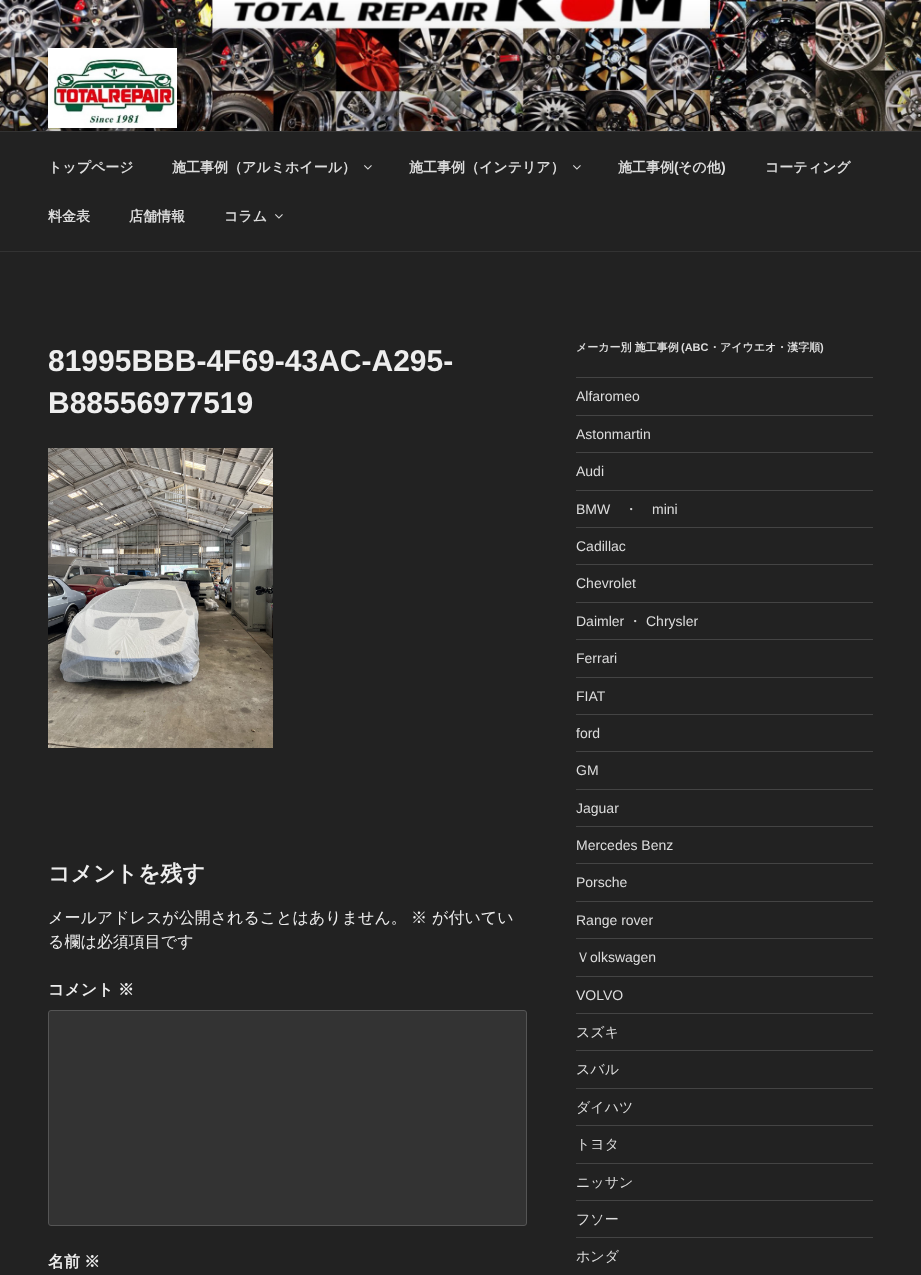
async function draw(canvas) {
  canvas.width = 921
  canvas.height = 1275
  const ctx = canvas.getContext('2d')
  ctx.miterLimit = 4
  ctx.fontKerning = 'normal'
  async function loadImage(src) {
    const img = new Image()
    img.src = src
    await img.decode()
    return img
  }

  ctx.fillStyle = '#222'
  ctx.fillRect(0, 0, 921, 1275)
  ctx.drawImage(await loadImage('image0.png'), 0, 0, 921, 131)
  ctx.drawImage(await loadImage('image1.png'), 48, 48, 129, 80)
  ctx.fillStyle = '#333'
  ctx.fillRect(0, 131, 921, 1)
  ctx.fillRect(0, 251, 921, 1)
  ctx.font = 'bold 14px WenQuanYi Zen Hei'
  ctx.fillStyle = '#ddd'
  ctx.fillText('トップページ', 48, 172)
  ctx.fillText('施工事例（アルミホイール）', 172, 172)
  ctx.drawImage(await loadImage('image2.png'), 364, 165, 8, 5)
  ctx.fillText('施工事例（インテリア）', 409, 172)
  ctx.drawImage(await loadImage('image2.png'), 573, 165, 8, 5)
  ctx.fillText('施工事例', 618, 172)
  ctx.font = 'bold 14px Liberation Sans'
  ctx.fillText('(', 674, 172)
  ctx.font = 'bold 14px WenQuanYi Zen Hei'
  ctx.fillText('その他', 678, 172)
  ctx.font = 'bold 14px Liberation Sans'
  ctx.fillText(')', 721, 172)
  ctx.font = 'bold 14px WenQuanYi Zen Hei'
  ctx.fillText('コーティング', 765, 172)
  ctx.fillText('料金表', 48, 221)
  ctx.fillText('店舗情報', 129, 221)
  ctx.fillText('コラム', 224, 221)
  ctx.drawImage(await loadImage('image2.png'), 275, 214, 8, 5)
  ctx.font = 'bold 30px Liberation Sans'
  ctx.fillStyle = '#eee'
  ctx.fillText('81995BBB-4F69-43AC-A295-', 48, 371)
  ctx.fillText('B88556977519', 48, 413)
  ctx.drawImage(await loadImage('image3.png'), 48, 448, 225, 300)
  ctx.font = 'bold 22px WenQuanYi Zen Hei'
  ctx.fillText('コメントを残す', 48, 881)
  ctx.font = '500 16px WenQuanYi Zen Hei'
  ctx.fillText('メールアドレスが公開されることはありません。', 48, 923)
  ctx.fillText('※', 411, 923)
  ctx.fillText('が付いてい', 432, 923)
  ctx.fillText('る欄は必須項目です', 48, 947)
  ctx.font = 'bold 16px WenQuanYi Zen Hei'
  ctx.fillText('コメント', 48, 995)
  ctx.fillText('※', 118, 995)
  ctx.fillStyle = '#333'
  ctx.beginPath()
  ctx.roundRect(48.5, 1010.5, 478, 215, 2.5)
  ctx.fill()
  ctx.strokeStyle = '#555'
  ctx.stroke()
  ctx.fillStyle = '#eee'
  ctx.fillText('名前', 48, 1267)
  ctx.fillText('※', 84, 1267)
  ctx.font = 'bold 11px WenQuanYi Zen Hei'
  ctx.fillStyle = '#ddd'
  ctx.fillText('メーカー別 施工事例', 576, 351)
  ctx.font = 'bold 11px Liberation Sans'
  ctx.fillText('(ABC', 681, 351)
  ctx.font = 'bold 11px WenQuanYi Zen Hei'
  ctx.fillText('・アイウエオ・漢字順', 709, 351)
  ctx.font = 'bold 11px Liberation Sans'
  ctx.fillText(')', 820, 351)
  ctx.fillStyle = '#444'
  ctx.fillRect(576, 377, 297, 1)
  ctx.fillRect(576, 415, 297, 1)
  ctx.font = '14px Liberation Sans'
  ctx.fillStyle = '#ddd'
  ctx.fillText('Alfaromeo', 576, 401)
  ctx.fillStyle = '#444'
  ctx.fillRect(576, 452, 297, 1)
  ctx.fillStyle = '#ddd'
  ctx.fillText('Astonmartin', 576, 439)
  ctx.fillStyle = '#444'
  ctx.fillRect(576, 490, 297, 1)
  ctx.fillStyle = '#ddd'
  ctx.fillText('Audi', 576, 476)
  ctx.fillStyle = '#444'
  ctx.fillRect(576, 527, 297, 1)
  ctx.fillStyle = '#ddd'
  ctx.fillText('BMW', 576, 514)
  ctx.font = '500 14px WenQuanYi Zen Hei'
  ctx.fillText('・', 624, 514)
  ctx.font = '14px Liberation Sans'
  ctx.fillText('mini', 652, 514)
  ctx.fillStyle = '#444'
  ctx.fillRect(576, 564, 297, 1)
  ctx.fillStyle = '#ddd'
  ctx.fillText('Cadillac', 576, 551)
  ctx.fillStyle = '#444'
  ctx.fillRect(576, 602, 297, 1)
  ctx.fillStyle = '#ddd'
  ctx.fillText('Chevrolet', 576, 588)
  ctx.fillStyle = '#444'
  ctx.fillRect(576, 639, 297, 1)
  ctx.fillStyle = '#ddd'
  ctx.fillText('Daimler', 576, 626)
  ctx.font = '500 14px WenQuanYi Zen Hei'
  ctx.fillText('・', 628, 626)
  ctx.font = '14px Liberation Sans'
  ctx.fillText('Chrysler', 646, 626)
  ctx.fillStyle = '#444'
  ctx.fillRect(576, 677, 297, 1)
  ctx.fillStyle = '#ddd'
  ctx.fillText('Ferrari', 576, 663)
  ctx.fillStyle = '#444'
  ctx.fillRect(576, 714, 297, 1)
  ctx.fillStyle = '#ddd'
  ctx.fillText('FIAT', 576, 701)
  ctx.fillStyle = '#444'
  ctx.fillRect(576, 751, 297, 1)
  ctx.fillStyle = '#ddd'
  ctx.fillText('ford', 576, 738)
  ctx.fillStyle = '#444'
  ctx.fillRect(576, 789, 297, 1)
  ctx.fillStyle = '#ddd'
  ctx.fillText('GM', 576, 775)
  ctx.fillStyle = '#444'
  ctx.fillRect(576, 826, 297, 1)
  ctx.fillStyle = '#ddd'
  ctx.fillText('Jaguar', 576, 813)
  ctx.fillStyle = '#444'
  ctx.fillRect(576, 863, 297, 1)
  ctx.fillStyle = '#ddd'
  ctx.fillText('Mercedes Benz', 576, 850)
  ctx.fillStyle = '#444'
  ctx.fillRect(576, 901, 297, 1)
  ctx.fillStyle = '#ddd'
  ctx.fillText('Porsche', 576, 887)
  ctx.fillStyle = '#444'
  ctx.fillRect(576, 938, 297, 1)
  ctx.fillStyle = '#ddd'
  ctx.fillText('Range rover', 576, 925)
  ctx.fillStyle = '#444'
  ctx.fillRect(576, 976, 297, 1)
  ctx.font = '500 14px WenQuanYi Zen Hei'
  ctx.fillStyle = '#ddd'
  ctx.fillText('Ｖ', 576, 962)
  ctx.font = '14px Liberation Sans'
  ctx.fillText('olkswagen', 590, 962)
  ctx.fillStyle = '#444'
  ctx.fillRect(576, 1013, 297, 1)
  ctx.fillStyle = '#ddd'
  ctx.fillText('VOLVO', 576, 1000)
  ctx.fillStyle = '#444'
  ctx.fillRect(576, 1050, 297, 1)
  ctx.font = '500 14px WenQuanYi Zen Hei'
  ctx.fillStyle = '#ddd'
  ctx.fillText('スズキ', 576, 1037)
  ctx.fillStyle = '#444'
  ctx.fillRect(576, 1088, 297, 1)
  ctx.fillStyle = '#ddd'
  ctx.fillText('スバル', 576, 1074)
  ctx.fillStyle = '#444'
  ctx.fillRect(576, 1125, 297, 1)
  ctx.fillStyle = '#ddd'
  ctx.fillText('ダイハツ', 576, 1112)
  ctx.fillStyle = '#444'
  ctx.fillRect(576, 1163, 297, 1)
  ctx.fillStyle = '#ddd'
  ctx.fillText('トヨタ', 576, 1149)
  ctx.fillStyle = '#444'
  ctx.fillRect(576, 1200, 297, 1)
  ctx.fillStyle = '#ddd'
  ctx.fillText('ニッサン', 576, 1187)
  ctx.fillStyle = '#444'
  ctx.fillRect(576, 1237, 297, 1)
  ctx.fillStyle = '#ddd'
  ctx.fillText('フソー', 576, 1224)
  ctx.fillText('ホンダ', 576, 1261)
}

draw(document.querySelector('canvas'))
